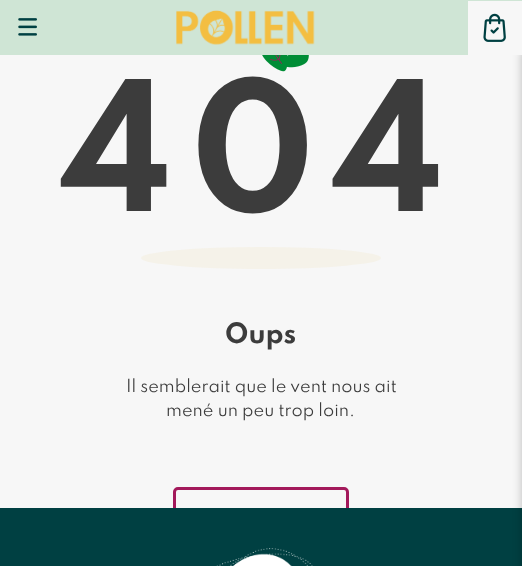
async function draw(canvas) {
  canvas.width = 522
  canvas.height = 566
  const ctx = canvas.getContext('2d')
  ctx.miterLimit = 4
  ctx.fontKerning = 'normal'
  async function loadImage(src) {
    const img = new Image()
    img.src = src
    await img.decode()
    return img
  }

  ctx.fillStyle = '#f7f7f7'
  ctx.fillRect(0, 0, 522, 566)
  ctx.fillStyle = '#004042'
  ctx.fillRect(0, 508, 522, 58)
  ctx.fillStyle = '#0000003d'
  ctx.filter = 'blur(5px)'
  ctx.beginPath()
  ctx.rect(522, 50, 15, 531)
  ctx.fill()
  ctx.filter = 'none'
  ctx.fillStyle = '#cfe5d5'
  ctx.fillRect(0, 0, 522, 55)
  ctx.drawImage(await loadImage('image0.png'), 18, 18, 19, 18)
  ctx.drawImage(await loadImage('image1.png'), 176, 10, 139, 35)
  ctx.fillStyle = '#f7f7f7'
  ctx.fillRect(468, 1, 54, 54)
  ctx.drawImage(await loadImage('image2.png'), 483, 13, 23, 29)
  ctx.drawImage(await loadImage('image3.png'), 262, 55, 47, 17)
  ctx.letterSpacing = '16px'
  ctx.font = 'bold 160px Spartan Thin'
  ctx.fillStyle = '#3c3c3c'
  ctx.fillText('404', 60, 211)
  ctx.fillStyle = '#f5f2e9'
  ctx.beginPath()
  ctx.ellipse(261, 258, 120, 11, 0, 0, 2 * Math.PI)
  ctx.fill()
  ctx.letterSpacing = '0px'
  ctx.font = 'bold 25px Spartan Thin'
  ctx.fillStyle = '#3c3c3c'
  ctx.fillText('Oups', 225, 343)
  ctx.font = '16px Spartan Thin'
  ctx.fillText('Il semblerait que le vent nous ait', 126, 392)
  ctx.fillText('mené un peu trop loin.', 166, 416)
  ctx.save()
  ctx.beginPath()
  ctx.rect(0, 55, 522, 453)
  ctx.clip()
  ctx.beginPath()
  ctx.roundRect(174.5, 488.5, 173, 44, 3.5)
  ctx.strokeStyle = '#a3195b'
  ctx.lineWidth = 3
  ctx.stroke()
  ctx.restore()
  ctx.drawImage(await loadImage('image4.png'), 216, 548, 97, 18)
}

draw(document.querySelector('canvas'))
